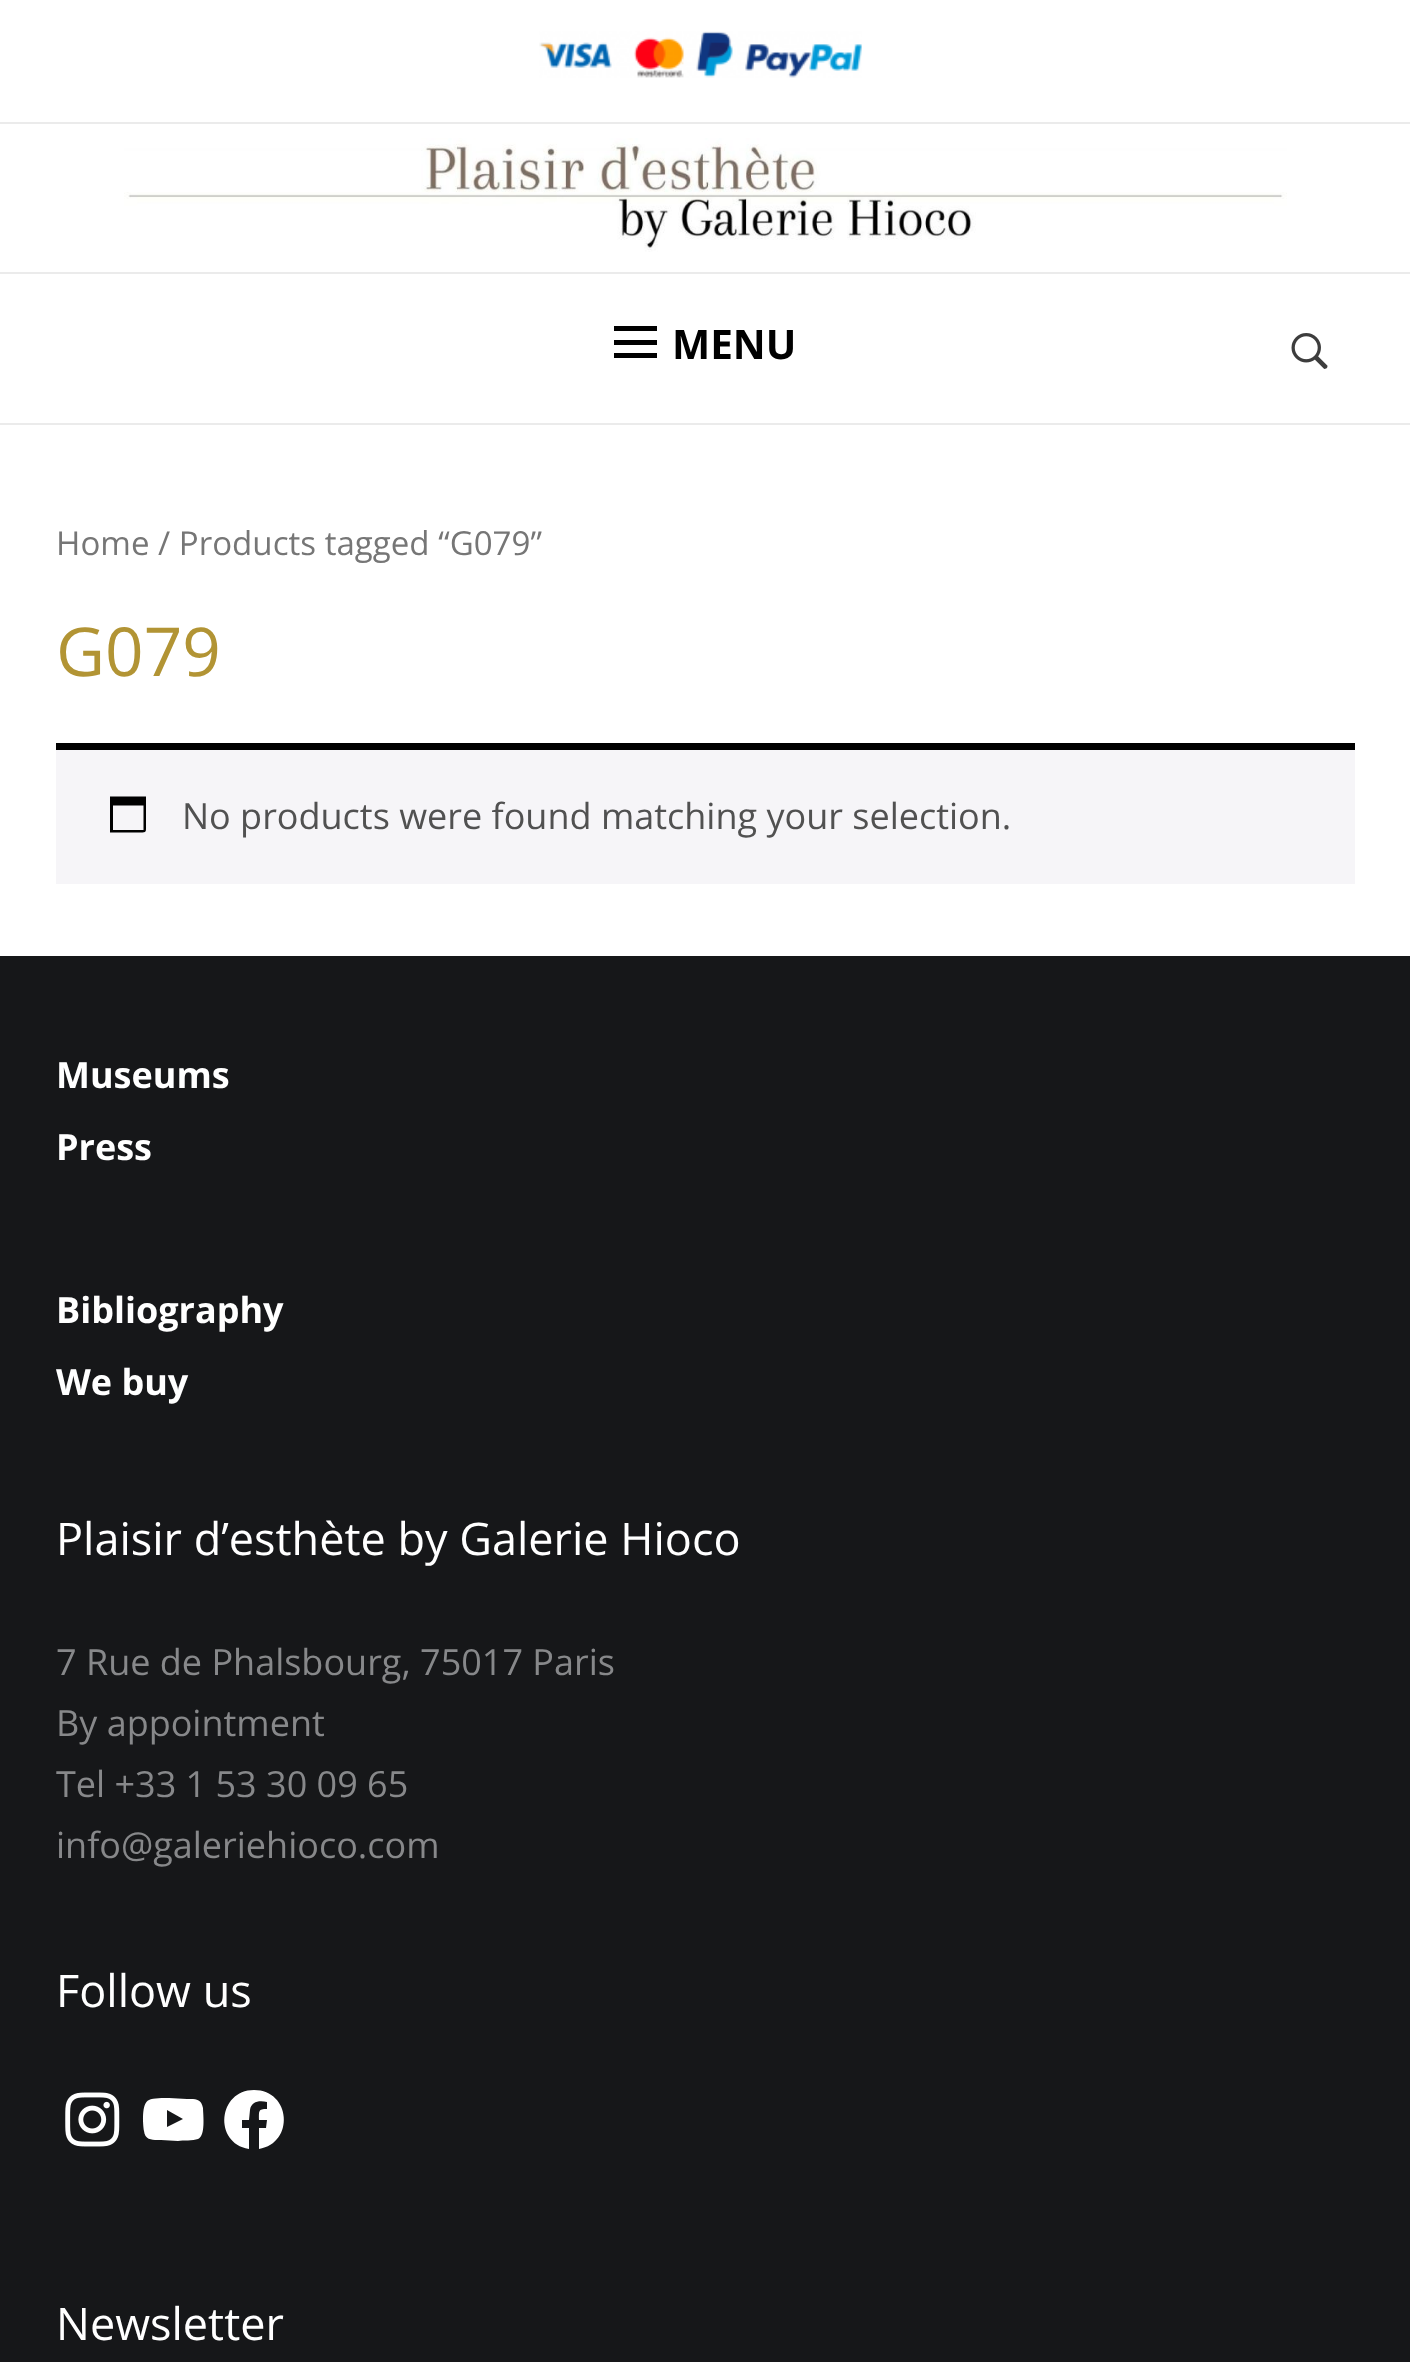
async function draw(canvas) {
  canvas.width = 1410
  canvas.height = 2362
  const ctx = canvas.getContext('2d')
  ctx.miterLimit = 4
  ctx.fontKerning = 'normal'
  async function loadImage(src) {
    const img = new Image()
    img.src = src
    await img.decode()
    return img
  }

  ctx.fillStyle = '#fff'
  ctx.fillRect(0, 0, 1410, 2362)
  ctx.fillStyle = '#ebebeb'
  ctx.fillRect(0, 122, 1410, 2)
  ctx.drawImage(await loadImage('image0.png'), 539, 31, 323, 47)
  ctx.drawImage(await loadImage('image1.png'), 124, 138, 1163, 114)
  ctx.fillRect(0, 272, 1410, 2)
  ctx.fillRect(0, 423, 1410, 2)
  ctx.fillStyle = '#000'
  ctx.fillRect(614, 326, 43, 5)
  ctx.fillRect(614, 340, 43, 5)
  ctx.fillRect(614, 353, 43, 5)
  ctx.font = 'bold 40.5px Open Sans'
  ctx.fillText('MENU', 672, 359)
  ctx.drawImage(await loadImage('image2.png'), 1291, 333, 37, 36)
  ctx.font = '33.1px Open Sans'
  ctx.fillStyle = '#767676'
  ctx.fillText('Home / Products tagged “G079”', 56, 555)
  ctx.font = '67.5px Open Sans'
  ctx.fillStyle = '#b29434'
  ctx.fillText('G079', 56, 676)
  ctx.fillStyle = '#f6f5f8'
  ctx.fillRect(56, 750, 1299, 134)
  ctx.fillStyle = '#000'
  ctx.fillRect(56, 743, 1299, 7)
  ctx.beginPath()
  ctx.moveTo(143.5, 805.5)
  ctx.lineTo(113, 805.5)
  ctx.lineTo(113, 830)
  ctx.lineTo(143.5, 830)
  ctx.closePath()
  ctx.moveTo(146, 796.5)
  ctx.lineTo(146, 824)
  ctx.bezierCurveTo(146, 833, 147, 832.5, 138, 832.5)
  ctx.lineTo(110, 832.5)
  ctx.lineTo(110, 796.5)
  ctx.closePath()
  ctx.fill()
  ctx.font = '36px Open Sans'
  ctx.fillStyle = '#515151'
  ctx.fillText('No products were found matching your selection.', 182, 829)
  ctx.fillStyle = '#161719'
  ctx.fillRect(0, 956, 1410, 1406)
  ctx.font = 'bold 36px Open Sans'
  ctx.fillStyle = '#fff'
  ctx.fillText('Museums', 56, 1088)
  ctx.fillText('Press', 56, 1160)
  ctx.fillText('Bibliography', 56, 1323)
  ctx.fillText('We buy', 56, 1395)
  ctx.font = '45px Open Sans'
  ctx.fillText('Plaisir d’esthète by Galerie Hioco', 56, 1555)
  ctx.font = '36px Open Sans'
  ctx.fillStyle = '#87888a'
  ctx.fillText('7 Rue de Phalsbourg, 75017 Paris', 56, 1675)
  ctx.fillText('By appointment', 56, 1736)
  ctx.fillText('Tel +33 1 53 30 09 65', 56, 1797)
  ctx.fillText('info@galeriehioco.com', 56, 1858)
  ctx.font = '45px Open Sans'
  ctx.fillStyle = '#fff'
  ctx.fillText('Follow us', 56, 2007)
  ctx.drawImage(await loadImage('image3.png'), 65, 2092, 55, 55)
  ctx.beginPath()
  ctx.moveTo(203, 2108)
  ctx.bezierCurveTo(201, 2098, 195, 2099, 187, 2099)
  ctx.lineTo(169, 2098)
  ctx.bezierCurveTo(164, 2098, 153, 2098, 149, 2100)
  ctx.bezierCurveTo(141, 2103, 143, 2125, 144, 2131)
  ctx.bezierCurveTo(145, 2141, 154, 2140, 161, 2140)
  ctx.lineTo(178, 2141)
  ctx.bezierCurveTo(183, 2140, 193, 2141, 198, 2139)
  ctx.bezierCurveTo(206, 2136, 203, 2114, 203, 2108)
  ctx.closePath()
  ctx.moveTo(167, 2127)
  ctx.lineTo(167, 2110)
  ctx.lineTo(183, 2119)
  ctx.closePath()
  ctx.fill()
  ctx.beginPath()
  ctx.moveTo(254, 2090)
  ctx.bezierCurveTo(218, 2090, 213, 2143, 249, 2149)
  ctx.lineTo(249, 2128)
  ctx.lineTo(242, 2128)
  ctx.lineTo(242, 2120)
  ctx.lineTo(249, 2120)
  ctx.lineTo(250, 2110)
  ctx.bezierCurveTo(251, 2101, 260, 2100, 267, 2102)
  ctx.lineTo(267, 2109)
  ctx.bezierCurveTo(258, 2109, 259, 2111, 259, 2120)
  ctx.lineTo(267, 2120)
  ctx.lineTo(266, 2128)
  ctx.lineTo(259, 2128)
  ctx.lineTo(259, 2149)
  ctx.bezierCurveTo(295, 2143, 291, 2090, 254, 2090)
  ctx.closePath()
  ctx.fill()
  ctx.fillText('Newsletter', 56, 2340)
}

draw(document.querySelector('canvas'))
